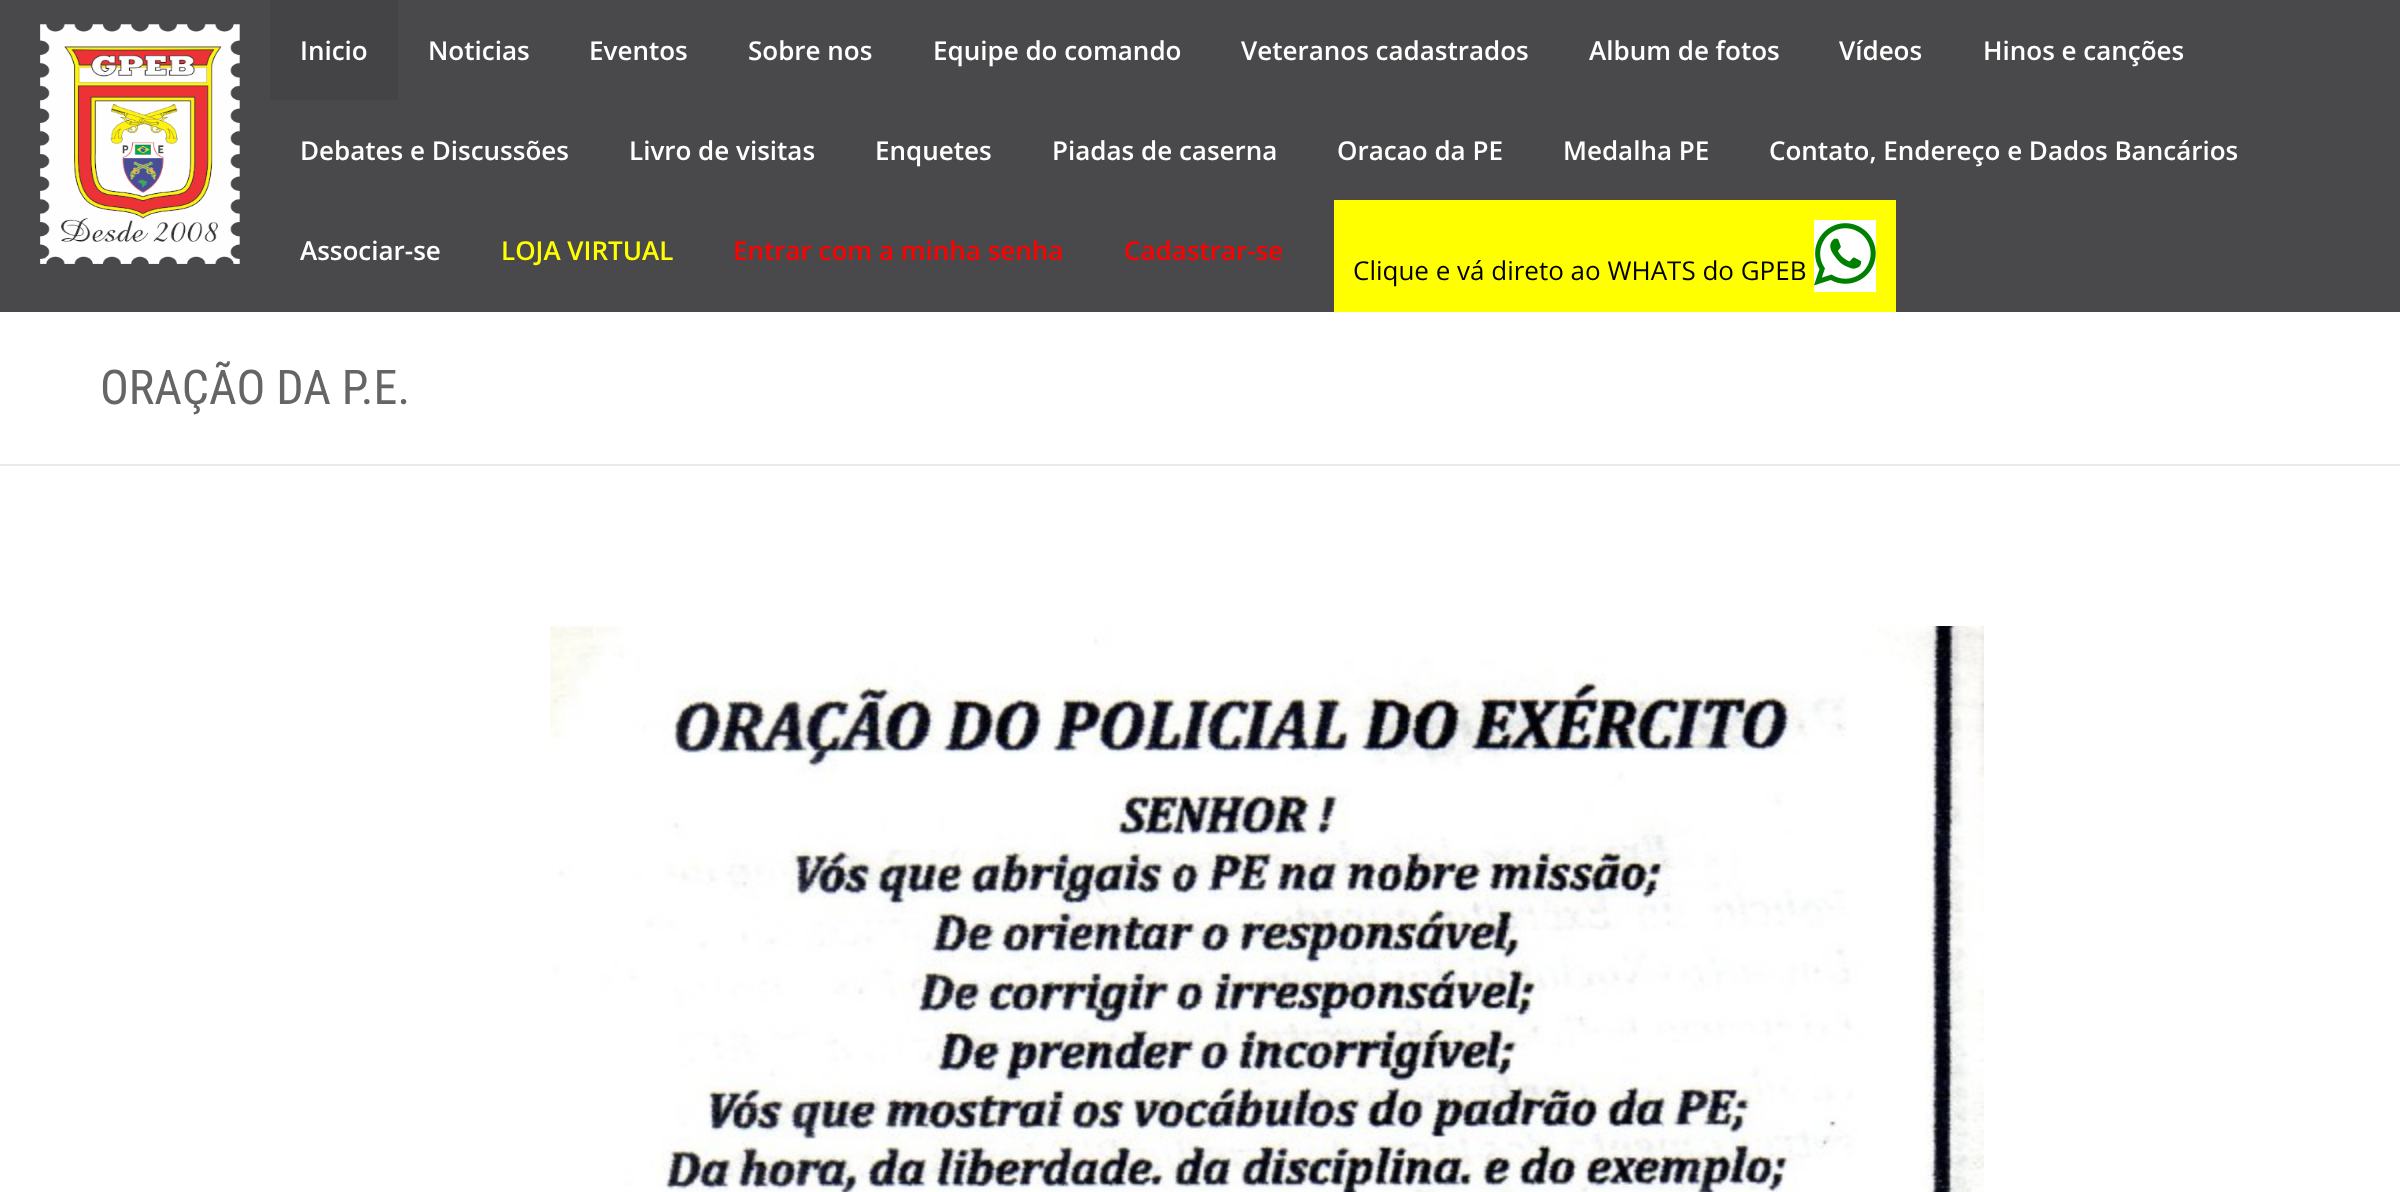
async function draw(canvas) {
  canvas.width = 2400
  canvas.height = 1192
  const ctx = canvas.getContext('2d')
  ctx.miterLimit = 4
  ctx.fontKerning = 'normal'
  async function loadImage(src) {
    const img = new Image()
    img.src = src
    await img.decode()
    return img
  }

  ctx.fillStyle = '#fff'
  ctx.fillRect(0, 0, 2400, 1192)
  ctx.fillStyle = '#49494b'
  ctx.fillRect(0, 0, 2400, 312)
  ctx.drawImage(await loadImage('image0.png'), 40, 24, 200, 240)
  ctx.fillStyle = '#444446'
  ctx.fillRect(270, 0, 128, 100)
  ctx.font = '600 26px Open Sans'
  ctx.fillStyle = '#fff'
  ctx.fillText('Inicio', 300, 60)
  ctx.fillText('Noticias', 428, 60)
  ctx.fillText('Eventos', 589, 60)
  ctx.fillText('Sobre nos', 748, 60)
  ctx.fillText('Equipe do comando', 933, 60)
  ctx.fillText('Veteranos cadastrados', 1241, 60)
  ctx.fillText('Album de fotos', 1589, 60)
  ctx.fillText('Vídeos', 1839, 60)
  ctx.fillText('Hinos e canções', 1983, 60)
  ctx.fillText('Debates e Discussões', 300, 160)
  ctx.fillText('Livro de visitas', 629, 160)
  ctx.fillText('Enquetes', 875, 160)
  ctx.fillText('Piadas de caserna', 1052, 160)
  ctx.fillText('Oracao da PE', 1337, 160)
  ctx.fillText('Medalha PE', 1563, 160)
  ctx.fillText('Contato, Endereço e Dados Bancários', 1769, 160)
  ctx.fillText('Associar-se', 300, 260)
  ctx.fillStyle = '#ff0'
  ctx.fillText('LOJA VIRTUAL', 501, 260)
  ctx.fillStyle = '#f00'
  ctx.fillText('Entrar com a minha senha', 733, 260)
  ctx.fillText('Cadastrar-se', 1124, 260)
  ctx.fillStyle = '#ff0'
  ctx.fillRect(1334, 200, 562, 112)
  ctx.font = '26px Open Sans'
  ctx.fillStyle = '#000'
  ctx.fillText('Clique e vá direto ao WHATS do GPEB', 1353, 280)
  ctx.fillStyle = '#fff'
  ctx.fillRect(1814, 220, 62, 72)
  ctx.drawImage(await loadImage('image1.png'), 1814, 223, 62, 63)
  ctx.fillStyle = '#eaeaea'
  ctx.fillRect(0, 464, 2400, 2)
  ctx.font = '48px Roboto Condensed'
  ctx.fillStyle = '#656565'
  ctx.fillText('ORAÇÃO DA P.E.', 100, 404)
  ctx.drawImage(await loadImage('image2.png'), 550, 626, 1434, 566)
}

draw(document.querySelector('canvas'))
